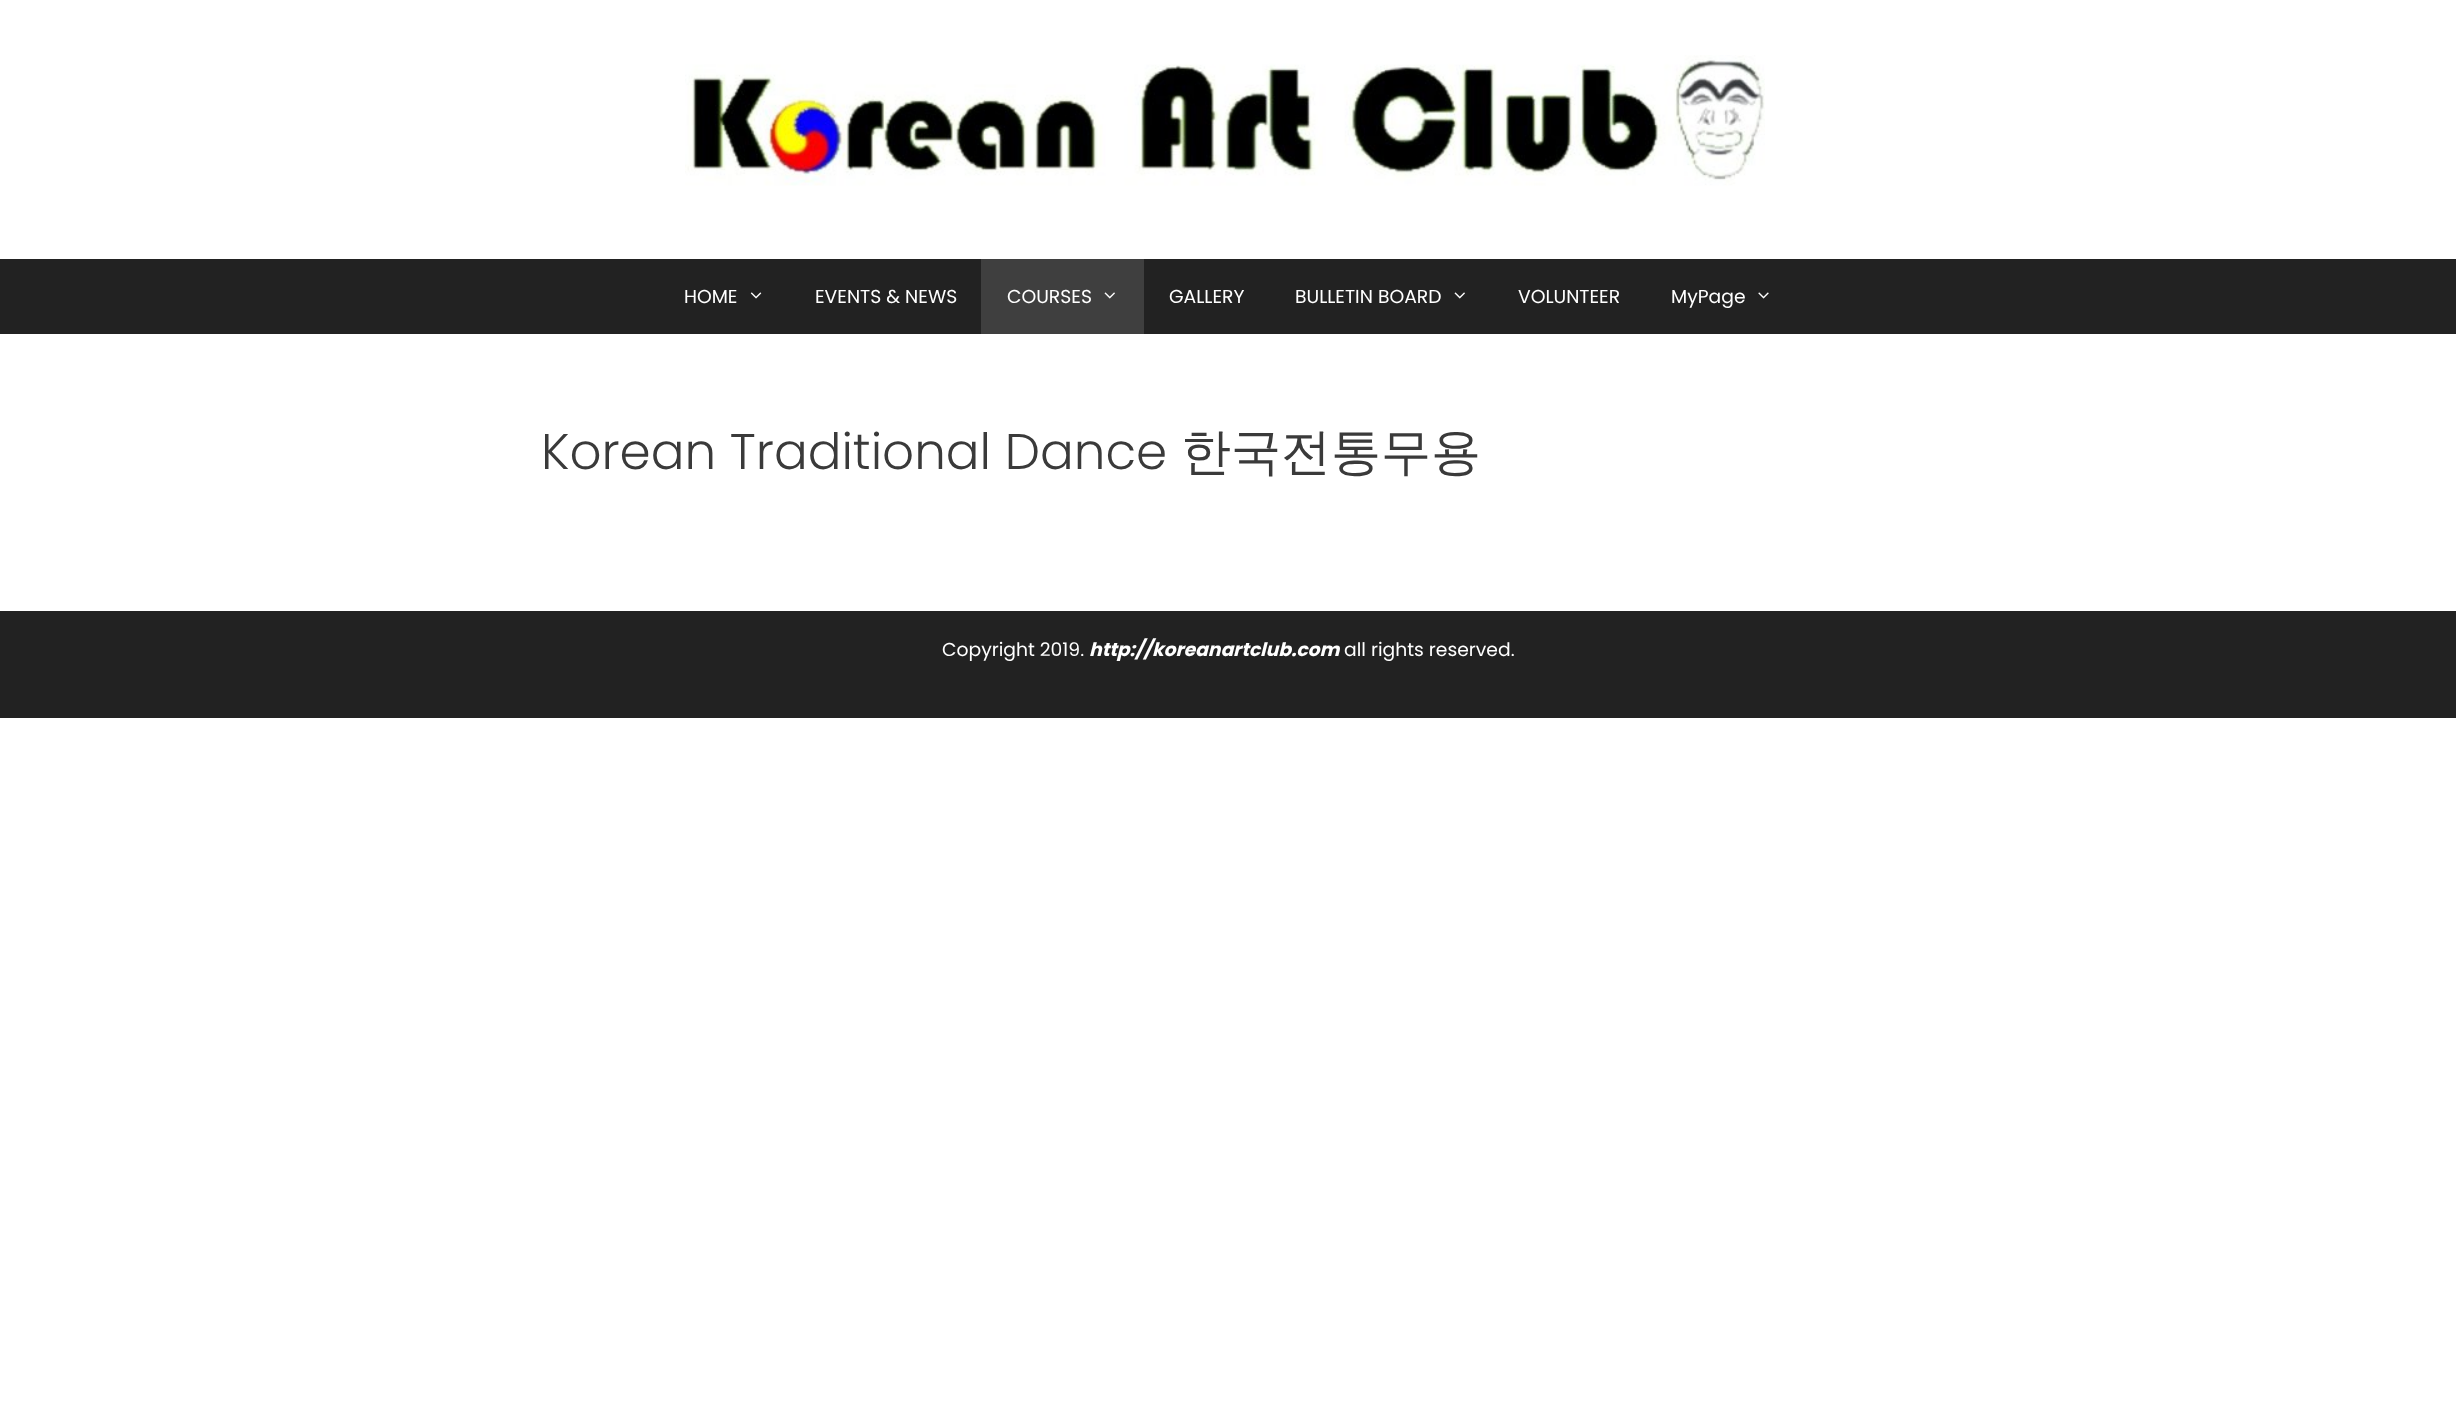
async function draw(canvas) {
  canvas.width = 2456
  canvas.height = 1404
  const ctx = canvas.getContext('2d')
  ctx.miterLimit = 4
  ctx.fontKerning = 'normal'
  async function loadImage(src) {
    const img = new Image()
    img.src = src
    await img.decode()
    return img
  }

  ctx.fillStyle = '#fff'
  ctx.fillRect(0, 0, 2456, 1404)
  ctx.drawImage(await loadImage('image0.png'), 685, 55, 1080, 131)
  ctx.fillStyle = '#222'
  ctx.fillRect(0, 259, 2456, 75)
  ctx.font = '18.75px Poppins'
  ctx.fillStyle = '#fff'
  ctx.fillText('HOME', 684, 303)
  ctx.drawImage(await loadImage('image1.png'), 750, 292, 12, 7)
  ctx.fillText('EVENTS & NEWS', 815, 303)
  ctx.fillStyle = '#3f3f3f'
  ctx.fillRect(981, 259, 163, 75)
  ctx.fillStyle = '#fff'
  ctx.fillText('COURSES', 1007, 303)
  ctx.drawImage(await loadImage('image2.png'), 1104, 292, 11, 7)
  ctx.fillText('GALLERY', 1169, 303)
  ctx.fillText('BULLETIN BOARD', 1295, 303)
  ctx.drawImage(await loadImage('image3.png'), 1454, 292, 11, 7)
  ctx.fillText('VOLUNTEER', 1518, 303)
  ctx.fillText('MyPage', 1671, 303)
  ctx.drawImage(await loadImage('image4.png'), 1758, 292, 11, 7)
  ctx.font = '300 50px Poppins'
  ctx.fillStyle = '#3a3a3a'
  ctx.fillText('Korean Traditional Dance', 541, 469)
  ctx.font = '500 50px WenQuanYi Zen Hei'
  ctx.fillText('한국전통무용', 1181, 469)
  ctx.fillStyle = '#222'
  ctx.fillRect(0, 611, 2456, 107)
  ctx.font = '18.75px Poppins'
  ctx.fillStyle = '#fff'
  ctx.fillText('Copyright 2019.', 942, 656)
  ctx.font = 'italic bold 18.75px Poppins'
  ctx.fillText('http://koreanartclub.com', 1089, 656)
  ctx.font = '18.75px Poppins'
  ctx.fillText('all rights reserved.', 1344, 656)
}

draw(document.querySelector('canvas'))
